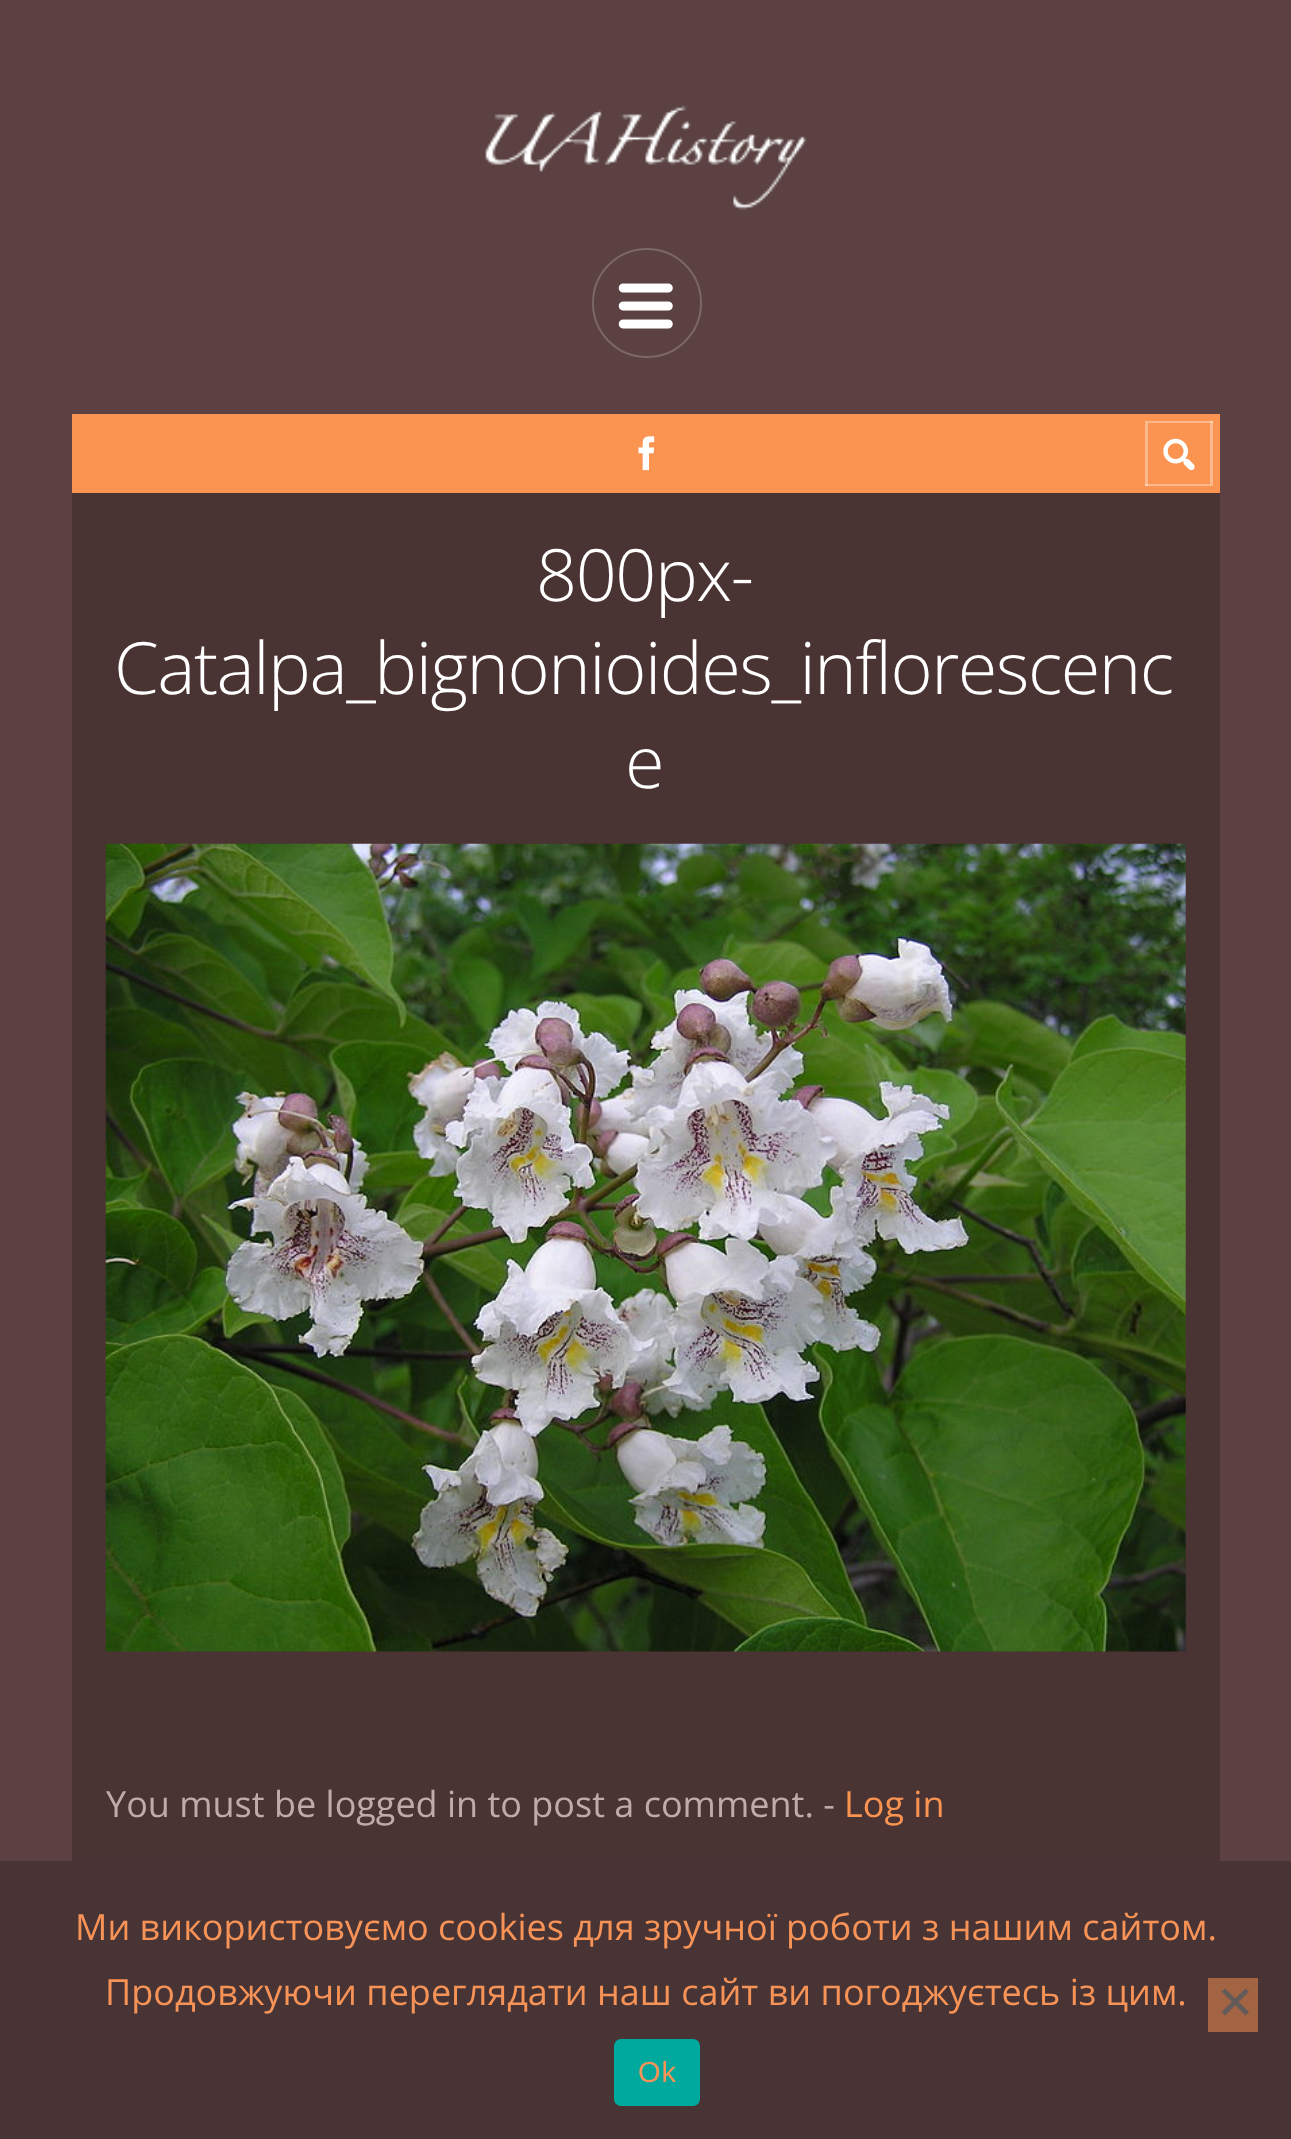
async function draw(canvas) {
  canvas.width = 1291
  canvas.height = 2139
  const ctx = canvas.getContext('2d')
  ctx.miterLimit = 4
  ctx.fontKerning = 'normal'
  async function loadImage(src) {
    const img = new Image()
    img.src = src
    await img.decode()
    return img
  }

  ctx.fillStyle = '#5b4141'
  ctx.fillRect(0, 0, 1291, 2139)
  ctx.fillStyle = '#4a3333'
  ctx.fillRect(72, 493, 1148, 1368)
  ctx.drawImage(await loadImage('image0.png'), 485, 105, 322, 105)
  ctx.beginPath()
  ctx.arc(647, 303, 54, 0, 2 * Math.PI)
  ctx.strokeStyle = '#7c6767'
  ctx.lineWidth = 2
  ctx.stroke()
  ctx.drawImage(await loadImage('image1.png'), 618, 283, 55, 46)
  ctx.fillStyle = '#fb9351'
  ctx.fillRect(72, 414, 1148, 79)
  ctx.drawImage(await loadImage('image2.png'), 638, 436, 17, 35)
  ctx.save()
  ctx.beginPath()
  ctx.rect(1145, 421, 68, 65)
  ctx.clip()
  ctx.fillStyle = '#fcb98e'
  ctx.beginPath()
  ctx.moveTo(922, 198)
  ctx.lineTo(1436, 198)
  ctx.lineTo(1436, 709)
  ctx.lineTo(922, 709)
  ctx.closePath()
  ctx.moveTo(1143, 418)
  ctx.lineTo(1210, 418)
  ctx.lineTo(1210, 484)
  ctx.lineTo(1143, 484)
  ctx.closePath()
  ctx.fill('evenodd')
  ctx.fillStyle = '#ffffff59'
  ctx.beginPath()
  ctx.moveTo(922, 198)
  ctx.lineTo(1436, 198)
  ctx.lineTo(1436, 709)
  ctx.lineTo(922, 709)
  ctx.closePath()
  ctx.moveTo(1148, 423)
  ctx.lineTo(1215, 423)
  ctx.lineTo(1215, 488)
  ctx.lineTo(1148, 488)
  ctx.closePath()
  ctx.fill('evenodd')
  ctx.restore()
  ctx.drawImage(await loadImage('image3.png'), 1163, 438, 32, 33)
  ctx.letterSpacing = '-1.45px'
  ctx.font = '300 72px Open Sans'
  ctx.fillStyle = '#fff'
  ctx.fillText('800px-', 536, 601)
  ctx.fillText('Catalpa_bignonioides_inflorescenc', 114, 694)
  ctx.fillText('e', 625, 788)
  ctx.drawImage(await loadImage('image4.png'), 105, 843, 1081, 809)
  ctx.letterSpacing = '0px'
  ctx.font = '36px Open Sans'
  ctx.fillStyle = '#c0abab'
  ctx.fillText('You must be logged in to post a comment. -', 106, 1817)
  ctx.fillStyle = '#fb9351'
  ctx.fillText('Log in', 844, 1817)
  ctx.fillStyle = '#483434'
  ctx.fillRect(0, 1861, 1291, 278)
  ctx.fillStyle = '#f89358'
  ctx.fillText('Ми використовуємо cookies для зручної роботи з нашим сайтом.', 75, 1940)
  ctx.fillText('Продовжуючи переглядати наш сайт ви погоджуєтесь із цим.', 105, 2005)
  ctx.fillStyle = '#a26443'
  ctx.fillRect(1208, 1978, 50, 54)
  ctx.fillStyle = '#645a5a'
  ctx.beginPath()
  ctx.moveTo(1245.5, 1988.5)
  ctx.lineTo(1249, 1991.5)
  ctx.lineTo(1225, 2015.5)
  ctx.lineTo(1221.5, 2012)
  ctx.closePath()
  ctx.fill()
  ctx.beginPath()
  ctx.moveTo(1221.5, 1991.5)
  ctx.lineTo(1225, 1988.5)
  ctx.lineTo(1249, 2012)
  ctx.lineTo(1245.5, 2015.5)
  ctx.closePath()
  ctx.fill()
  ctx.fillStyle = '#00a99d'
  ctx.beginPath()
  ctx.roundRect(614, 2039, 86, 67, 7)
  ctx.fill()
  ctx.letterSpacing = '1px'
  ctx.font = '29px Liberation Sans'
  ctx.fillStyle = '#f89358'
  ctx.fillText('Ok', 638, 2082)
}

draw(document.querySelector('canvas'))
